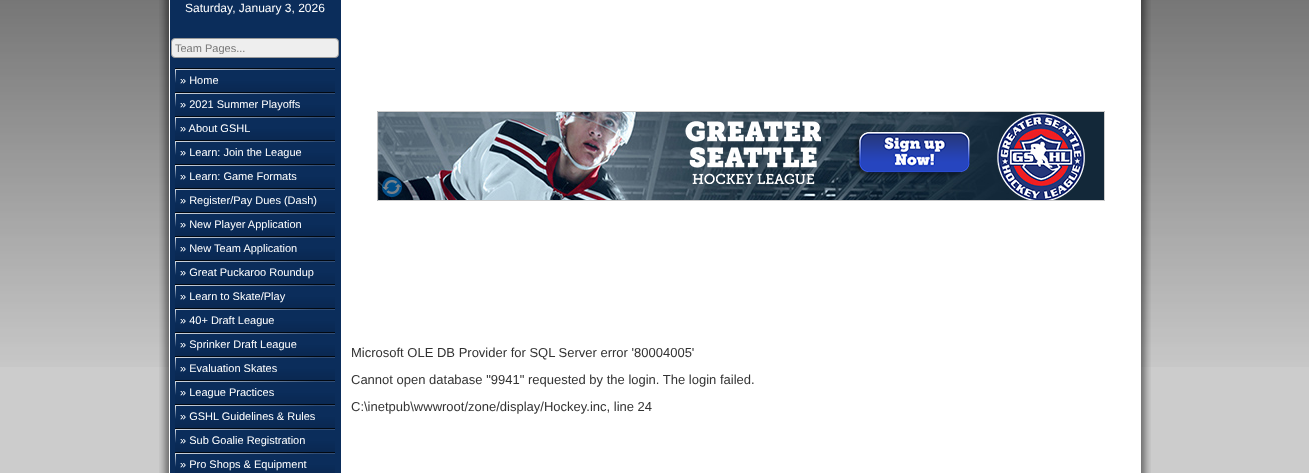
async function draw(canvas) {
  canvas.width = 1309
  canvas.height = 473
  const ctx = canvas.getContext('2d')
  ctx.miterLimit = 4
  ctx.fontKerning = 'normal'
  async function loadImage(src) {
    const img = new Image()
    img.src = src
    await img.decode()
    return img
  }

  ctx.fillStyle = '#ccc'
  ctx.fillRect(0, 0, 1309, 473)
  ctx.drawImage(await loadImage('image0.png'), 0, 0, 1309, 367)
  ctx.drawImage(await loadImage('image1.png'), 159, 0, 992, 473)
  ctx.fillStyle = '#0b2d5b'
  ctx.fillRect(170, 0, 171, 473)
  ctx.font = '12px Liberation Sans'
  ctx.fillStyle = '#fff'
  ctx.fillText('Saturday, January 3, 2026', 185, 12)
  ctx.fillStyle = '#eee'
  ctx.beginPath()
  ctx.roundRect(171.5, 38.5, 167, 19, 3.5)
  ctx.fill()
  ctx.strokeStyle = '#999'
  ctx.stroke()
  ctx.save()
  ctx.beginPath()
  ctx.rect(175, 42, 145, 12)
  ctx.clip()
  ctx.font = '11px Liberation Sans'
  ctx.fillStyle = '#777'
  ctx.fillText('Team Pages...', 175, 52)
  ctx.restore()
  ctx.drawImage(await loadImage('image2.png'), 175, 68, 160, 24)
  ctx.font = '11px Liberation Sans'
  ctx.fillStyle = '#fff'
  ctx.fillText('» Home', 180, 84)
  ctx.drawImage(await loadImage('image2.png'), 175, 92, 160, 24)
  ctx.fillText('» 2021 Summer Playoffs', 180, 108)
  ctx.drawImage(await loadImage('image2.png'), 175, 116, 160, 24)
  ctx.fillText('» About GSHL', 180, 132)
  ctx.drawImage(await loadImage('image2.png'), 175, 140, 160, 24)
  ctx.fillText('» Learn: Join the League', 180, 156)
  ctx.drawImage(await loadImage('image2.png'), 175, 164, 160, 24)
  ctx.fillText('» Learn: Game Formats', 180, 180)
  ctx.drawImage(await loadImage('image2.png'), 175, 188, 160, 24)
  ctx.fillText('» Register/Pay Dues (Dash)', 180, 204)
  ctx.drawImage(await loadImage('image2.png'), 175, 212, 160, 24)
  ctx.fillText('» New Player Application', 180, 228)
  ctx.drawImage(await loadImage('image2.png'), 175, 236, 160, 24)
  ctx.fillText('» New Team Application', 180, 252)
  ctx.drawImage(await loadImage('image2.png'), 175, 260, 160, 24)
  ctx.fillText('» Great Puckaroo Roundup', 180, 276)
  ctx.drawImage(await loadImage('image2.png'), 175, 284, 160, 24)
  ctx.fillText('» Learn to Skate/Play', 180, 300)
  ctx.drawImage(await loadImage('image2.png'), 175, 308, 160, 24)
  ctx.fillText('» 40+ Draft League', 180, 324)
  ctx.drawImage(await loadImage('image2.png'), 175, 332, 160, 24)
  ctx.fillText('» Sprinker Draft League', 180, 348)
  ctx.drawImage(await loadImage('image2.png'), 175, 356, 160, 24)
  ctx.fillText('» Evaluation Skates', 180, 372)
  ctx.drawImage(await loadImage('image2.png'), 175, 380, 160, 24)
  ctx.fillText('» League Practices', 180, 396)
  ctx.drawImage(await loadImage('image2.png'), 175, 404, 160, 24)
  ctx.fillText('» GSHL Guidelines & Rules', 180, 420)
  ctx.drawImage(await loadImage('image2.png'), 175, 428, 160, 24)
  ctx.fillText('» Sub Goalie Registration', 180, 444)
  ctx.drawImage(await loadImage('image3.png'), 175, 452, 160, 21)
  ctx.fillText('» Pro Shops & Equipment', 180, 468)
  ctx.drawImage(await loadImage('image4.png'), 377, 111, 728, 90)
  ctx.font = '13px Liberation Sans'
  ctx.fillStyle = '#333'
  ctx.fillText('Microsoft OLE DB Provider for SQL Server error \'80004005\'', 351, 357)
  ctx.fillText('Cannot open database "9941" requested by the login. The login failed.', 351, 384)
  ctx.fillText('C:\\inetpub\\wwwroot/zone/display/Hockey.inc, line 24', 351, 411)
}

draw(document.querySelector('canvas'))
